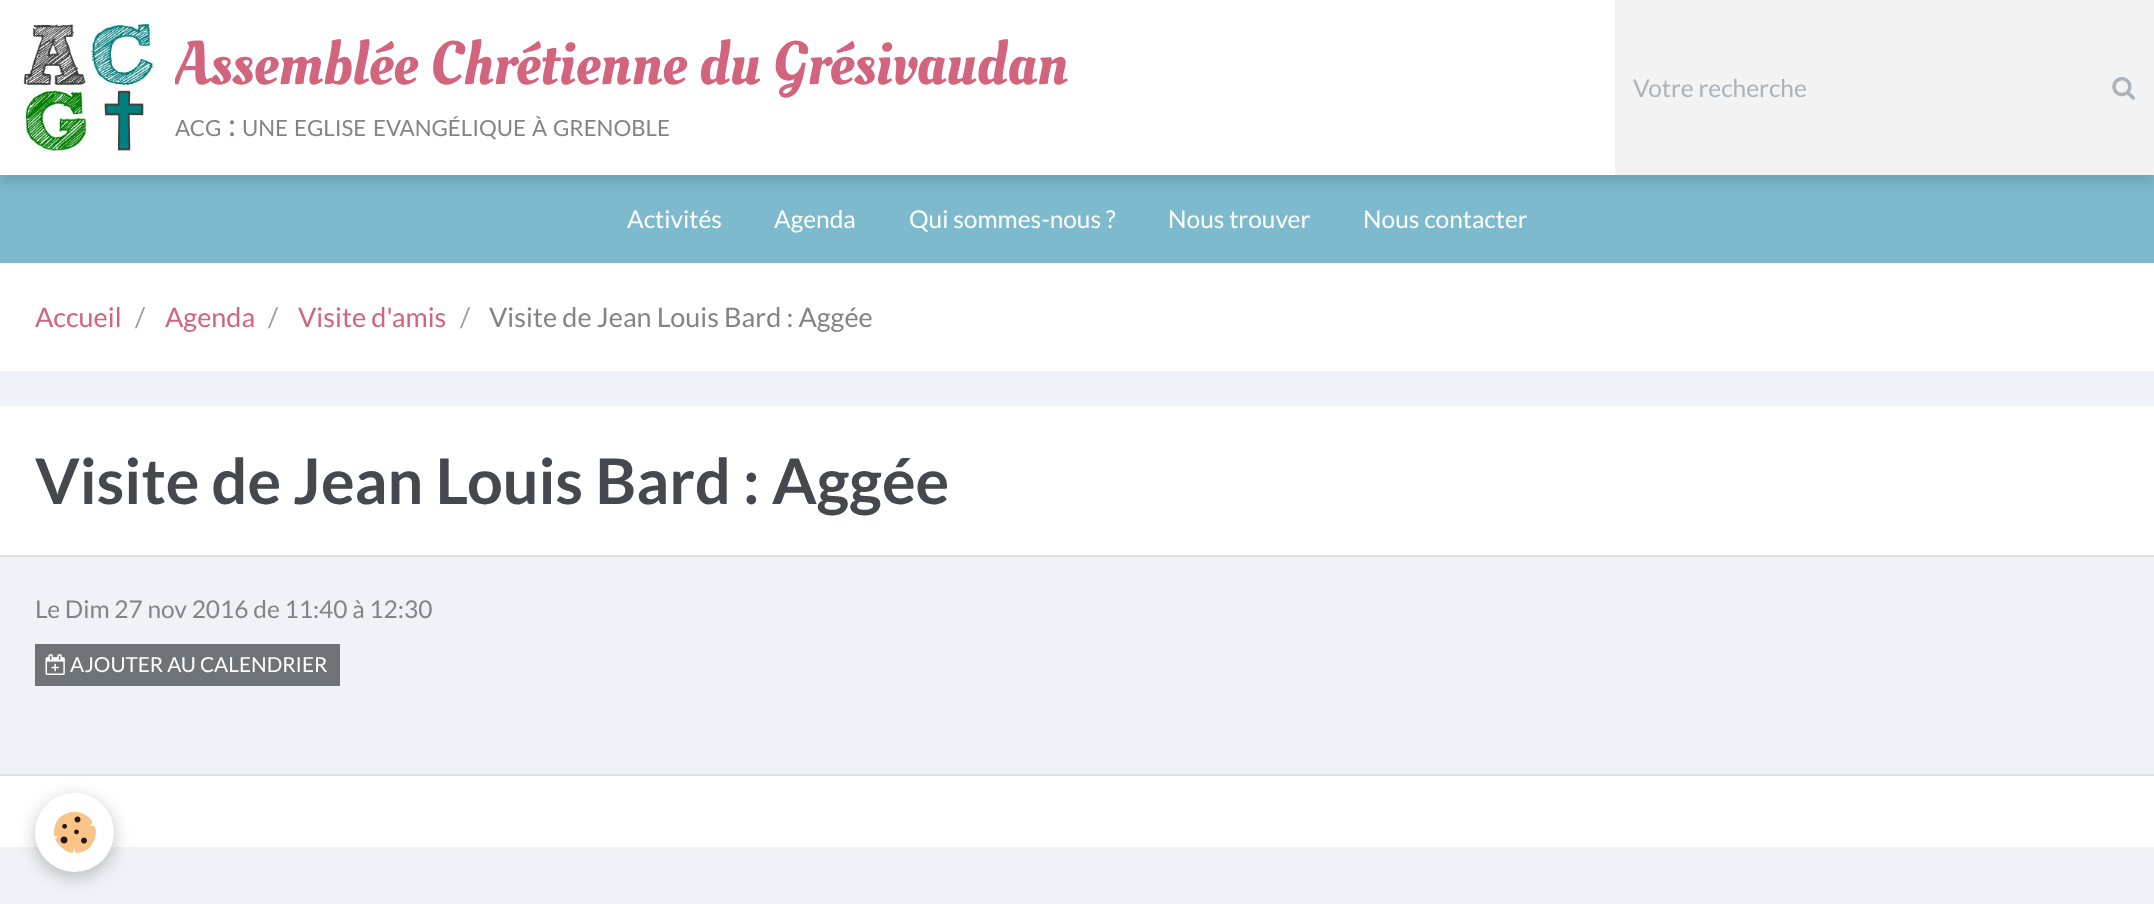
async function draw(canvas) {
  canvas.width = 2154
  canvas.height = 904
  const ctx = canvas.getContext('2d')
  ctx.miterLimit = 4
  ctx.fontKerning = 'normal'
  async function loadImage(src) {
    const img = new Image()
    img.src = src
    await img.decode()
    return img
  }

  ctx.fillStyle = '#eff3f7'
  ctx.fillRect(0, 0, 2154, 904)
  ctx.fillStyle = '#7dbace'
  ctx.fillRect(0, 175, 2154, 88)
  ctx.fillStyle = '#0000001a'
  ctx.filter = 'blur(4.5px)'
  ctx.beginPath()
  ctx.rect(0, 9, 2154, 175)
  ctx.fill()
  ctx.filter = 'none'
  ctx.fillStyle = '#fff'
  ctx.fillRect(0, 0, 1615, 175)
  ctx.drawImage(await loadImage('image0.png'), 23, 23, 131, 128)
  ctx.save()
  ctx.beginPath()
  ctx.rect(175, 28, 893, 74)
  ctx.clip()
  ctx.font = '61.25px Oleo Script'
  ctx.fillStyle = '#d2647e'
  ctx.fillText('Assemblée Chrétienne du Grésivaudan', 175, 84)
  ctx.restore()
  ctx.font = '22.25px Lato'
  ctx.fillStyle = '#848484'
  ctx.fillText('ACG', 175, 136)
  ctx.font = '32px Lato'
  ctx.fillText(':', 228, 136)
  ctx.font = '22.25px Lato'
  ctx.fillText('UNE', 242, 136)
  ctx.fillText('EGLISE', 294, 136)
  ctx.fillText('EVANGÉLIQUE', 373, 136)
  ctx.fillText('À', 532, 136)
  ctx.fillText('GRENOBLE', 553, 136)
  ctx.fillStyle = '#f3f3f3'
  ctx.fillRect(1615, 0, 539, 175)
  ctx.font = '24.5px Lato'
  ctx.fillStyle = '#aab3ba'
  ctx.fillText('Votre recherche', 1633, 97)
  ctx.drawImage(await loadImage('image1.png'), 2112, 77, 23, 23)
  ctx.fillStyle = '#fff'
  ctx.fillText('Activités', 627, 228)
  ctx.fillText('Agenda', 774, 228)
  ctx.fillText('Qui sommes-nous ?', 909, 228)
  ctx.fillText('Nous trouver', 1168, 228)
  ctx.fillText('Nous contacter', 1363, 228)
  ctx.fillRect(0, 263, 2154, 108)
  ctx.font = '27px Lato'
  ctx.fillStyle = '#d2647e'
  ctx.fillText('Accueil', 35, 327)
  ctx.fillStyle = '#9d9d9d'
  ctx.fillText('/', 135, 327)
  ctx.fillStyle = '#d2647e'
  ctx.fillText('Agenda', 165, 327)
  ctx.fillStyle = '#9d9d9d'
  ctx.fillText('/', 268, 327)
  ctx.fillStyle = '#d2647e'
  ctx.fillText('Visite d\'amis', 298, 327)
  ctx.fillStyle = '#9d9d9d'
  ctx.fillText('/', 460, 327)
  ctx.fillStyle = '#848484'
  ctx.fillText('Visite de Jean Louis Bard : Aggée', 489, 327)
  ctx.fillStyle = '#fff'
  ctx.fillRect(0, 406, 2154, 149)
  ctx.fillStyle = '#e0e0e0'
  ctx.fillRect(0, 555, 2154, 2)
  ctx.font = 'bold 63px Lato'
  ctx.fillStyle = '#45484d'
  ctx.fillText('Visite de Jean Louis Bard : Aggée', 35, 504)
  ctx.font = '24.5px Lato'
  ctx.fillStyle = '#848484'
  ctx.fillText('Le Dim 27 nov 2016 de 11:40 à 12:30', 35, 618)
  ctx.fillStyle = '#6e7377'
  ctx.fillRect(35, 644, 305, 42)
  ctx.drawImage(await loadImage('image2.png'), 45, 654, 20, 21)
  ctx.font = '20.75px Lato'
  ctx.fillStyle = '#fff'
  ctx.fillText('AJOUTER AU CALENDRIER', 70, 672)
  ctx.fillRect(0, 776, 2154, 71)
  ctx.fillStyle = '#e0e0e0'
  ctx.fillRect(0, 774, 2154, 2)
  ctx.fillStyle = '#0000003d'
  ctx.filter = 'blur(9px)'
  ctx.beginPath()
  ctx.roundRect(35, 798, 79, 79, 39.5)
  ctx.fill()
  ctx.filter = 'none'
  ctx.fillStyle = '#fff'
  ctx.beginPath()
  ctx.arc(74.5, 832.5, 39.5, 0, 2 * Math.PI)
  ctx.fill()
  ctx.drawImage(await loadImage('image3.png'), 53, 811, 43, 42)
}

draw(document.querySelector('canvas'))
